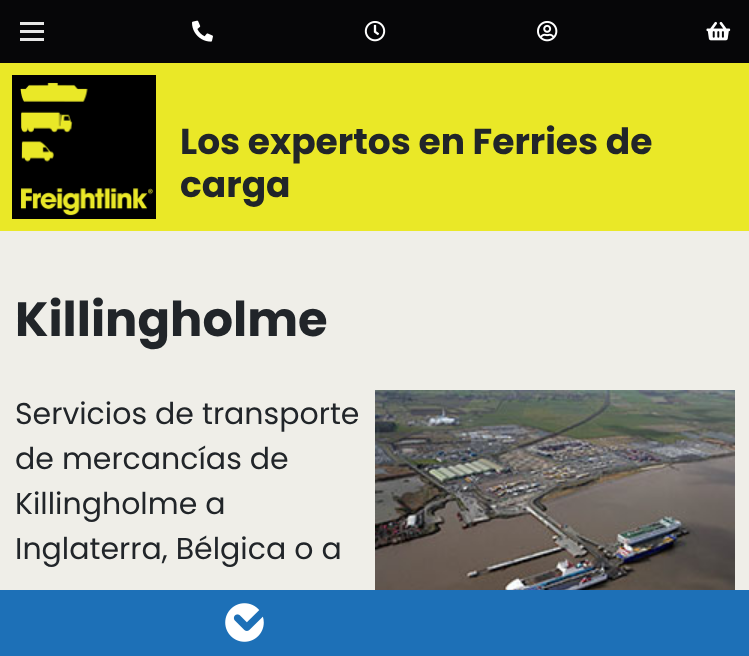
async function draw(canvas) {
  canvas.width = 749
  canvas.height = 656
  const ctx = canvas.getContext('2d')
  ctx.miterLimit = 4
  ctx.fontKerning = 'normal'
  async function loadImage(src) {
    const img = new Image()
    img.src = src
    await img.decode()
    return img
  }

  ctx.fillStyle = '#efeee8'
  ctx.fillRect(0, 0, 749, 656)
  ctx.fillStyle = '#060608'
  ctx.fillRect(0, 0, 749, 63)
  ctx.fillStyle = '#e6e6e6'
  ctx.fillRect(20, 22, 24, 3)
  ctx.fillRect(20, 38, 24, 3)
  ctx.fillRect(20, 30, 24, 3)
  ctx.drawImage(await loadImage('image0.png'), 192, 20, 21, 22)
  ctx.drawImage(await loadImage('image1.png'), 364, 21, 22, 21)
  ctx.drawImage(await loadImage('image2.png'), 537, 20, 21, 22)
  ctx.drawImage(await loadImage('image3.png'), 706, 21, 25, 20)
  ctx.fillStyle = '#eae827'
  ctx.fillRect(0, 63, 749, 168)
  ctx.drawImage(await loadImage('image4.png'), 12, 75, 144, 144)
  ctx.font = 'bold 36px Poppins'
  ctx.fillStyle = '#212529'
  ctx.fillText('Los expertos en Ferries de', 180, 154)
  ctx.fillText('carga', 180, 197)
  ctx.font = 'bold 48px Poppins'
  ctx.fillText('Killingholme', 15, 336)
  ctx.font = '30px Poppins'
  ctx.fillText('Servicios de transporte', 15, 424)
  ctx.fillText('de mercancías de', 15, 469)
  ctx.fillText('Killingholme a', 15, 514)
  ctx.fillText('Inglaterra, Bélgica o a', 15, 559)
  ctx.drawImage(await loadImage('image5.png'), 375, 390, 360, 200)
  ctx.fillStyle = '#1d70b7'
  ctx.fillRect(0, 590, 749, 66)
  ctx.drawImage(await loadImage('image6.png'), 225, 603, 39, 39)
}

draw(document.querySelector('canvas'))
